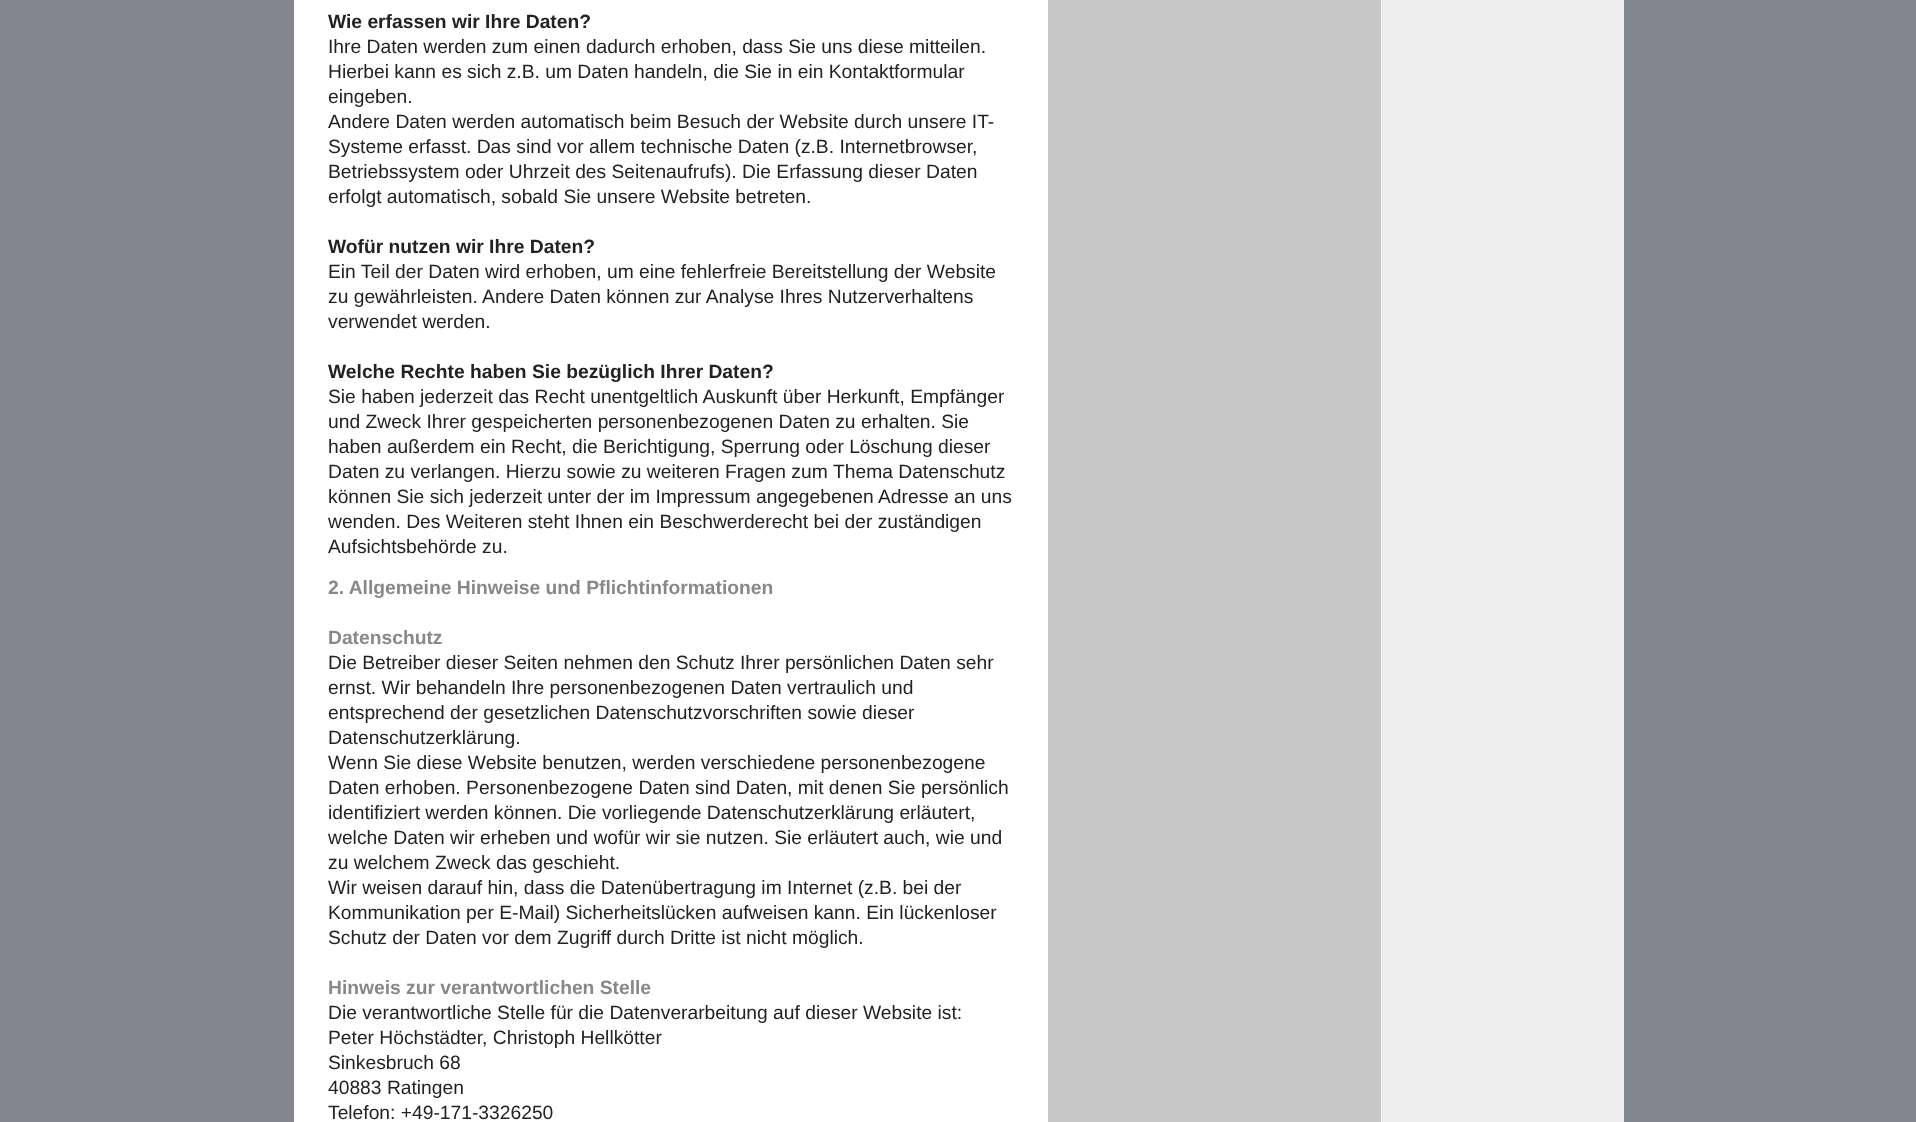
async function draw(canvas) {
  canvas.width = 1916
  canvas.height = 1122
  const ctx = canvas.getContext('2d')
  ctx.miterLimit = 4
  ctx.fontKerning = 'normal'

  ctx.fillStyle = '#84868f'
  ctx.fillRect(0, 0, 1916, 1122)
  ctx.fillStyle = '#fff'
  ctx.fillRect(294, 0, 754, 1122)
  ctx.font = 'bold 19.25px Liberation Sans'
  ctx.fillStyle = '#222'
  ctx.fillText('Wie erfassen wir Ihre Daten?', 328, 28)
  ctx.font = '19.25px Liberation Sans'
  ctx.fillText('Ihre Daten werden zum einen dadurch erhoben, dass Sie uns diese mitteilen.', 328, 53)
  ctx.fillText('Hierbei kann es sich z.B. um Daten handeln, die Sie in ein Kontaktformular', 328, 78)
  ctx.fillText('eingeben.', 328, 103)
  ctx.fillText('Andere Daten werden automatisch beim Besuch der Website durch unsere IT-', 328, 128)
  ctx.fillText('Systeme erfasst. Das sind vor allem technische Daten (z.B. Internetbrowser,', 328, 153)
  ctx.fillText('Betriebssystem oder Uhrzeit des Seitenaufrufs). Die Erfassung dieser Daten', 328, 178)
  ctx.fillText('erfolgt automatisch, sobald Sie unsere Website betreten.', 328, 203)
  ctx.font = 'bold 19.25px Liberation Sans'
  ctx.fillText('Wofür nutzen wir Ihre Daten?', 328, 253)
  ctx.font = '19.25px Liberation Sans'
  ctx.fillText('Ein Teil der Daten wird erhoben, um eine fehlerfreie Bereitstellung der Website', 328, 278)
  ctx.fillText('zu gewährleisten. Andere Daten können zur Analyse Ihres Nutzerverhaltens', 328, 303)
  ctx.fillText('verwendet werden.', 328, 328)
  ctx.font = 'bold 19.25px Liberation Sans'
  ctx.fillText('Welche Rechte haben Sie bezüglich Ihrer Daten?', 328, 378)
  ctx.font = '19.25px Liberation Sans'
  ctx.fillText('Sie haben jederzeit das Recht unentgeltlich Auskunft über Herkunft, Empfänger', 328, 403)
  ctx.fillText('und Zweck Ihrer gespeicherten personenbezogenen Daten zu erhalten. Sie', 328, 428)
  ctx.fillText('haben außerdem ein Recht, die Berichtigung, Sperrung oder Löschung dieser', 328, 453)
  ctx.fillText('Daten zu verlangen. Hierzu sowie zu weiteren Fragen zum', 328, 478)
  ctx.fillText('Thema Datenschutz', 833, 478)
  ctx.fillText('können Sie sich jederzeit unter der im Impressum angegebenen Adresse an uns', 328, 503)
  ctx.fillText('wenden. Des Weiteren steht Ihnen ein Beschwerderecht bei der zuständigen', 328, 528)
  ctx.fillText('Aufsichtsbehörde zu.', 328, 553)
  ctx.font = 'bold 19.25px Liberation Sans'
  ctx.fillStyle = '#888'
  ctx.fillText('2. Allgemeine Hinweise und Pflichtinformationen', 328, 594)
  ctx.fillText('Datenschutz', 328, 644)
  ctx.font = '19.25px Liberation Sans'
  ctx.fillStyle = '#222'
  ctx.fillText('Die Betreiber dieser Seiten nehmen den Schutz Ihrer persönlichen Daten sehr', 328, 669)
  ctx.fillText('ernst. Wir behandeln Ihre personenbezogenen Daten vertraulich und', 328, 694)
  ctx.fillText('entsprechend der gesetzlichen Datenschutzvorschriften sowie dieser', 328, 719)
  ctx.fillText('Datenschutzerklärung.', 328, 744)
  ctx.fillText('Wenn Sie diese Website benutzen, werden verschiedene personenbezogene', 328, 769)
  ctx.fillText('Daten erhoben. Personenbezogene Daten sind Daten, mit denen Sie persönlich', 328, 794)
  ctx.fillText('identifiziert werden können. Die vorliegende Datenschutzerklärung erläutert,', 328, 819)
  ctx.fillText('welche Daten wir erheben und wofür wir sie nutzen. Sie erläutert auch, wie und', 328, 844)
  ctx.fillText('zu welchem Zweck das geschieht.', 328, 869)
  ctx.fillText('Wir weisen darauf hin, dass die Datenübertragung im Internet (z.B. bei der', 328, 894)
  ctx.fillText('Kommunikation per E-Mail) Sicherheitslücken aufweisen kann. Ein lückenloser', 328, 919)
  ctx.fillText('Schutz der Daten vor dem Zugriff durch Dritte ist nicht möglich.', 328, 944)
  ctx.font = 'bold 19.25px Liberation Sans'
  ctx.fillStyle = '#888'
  ctx.fillText('Hinweis zur verantwortlichen Stelle', 328, 994)
  ctx.font = '19.25px Liberation Sans'
  ctx.fillStyle = '#222'
  ctx.fillText('Die verantwortliche Stelle für die Datenverarbeitung auf dieser Website ist:', 328, 1019)
  ctx.fillText('Peter Höchstädter, Christoph Hellkötter', 328, 1044)
  ctx.fillText('Sinkesbruch 68', 328, 1069)
  ctx.fillText('40883 Ratingen', 328, 1094)
  ctx.fillText('Telefon: +49-171-3326250', 328, 1119)
  ctx.fillStyle = '#c7c7c7'
  ctx.fillRect(1048, 0, 333, 1122)
  ctx.fillStyle = '#ededed'
  ctx.fillRect(1381, 0, 243, 1122)
}

draw(document.querySelector('canvas'))
